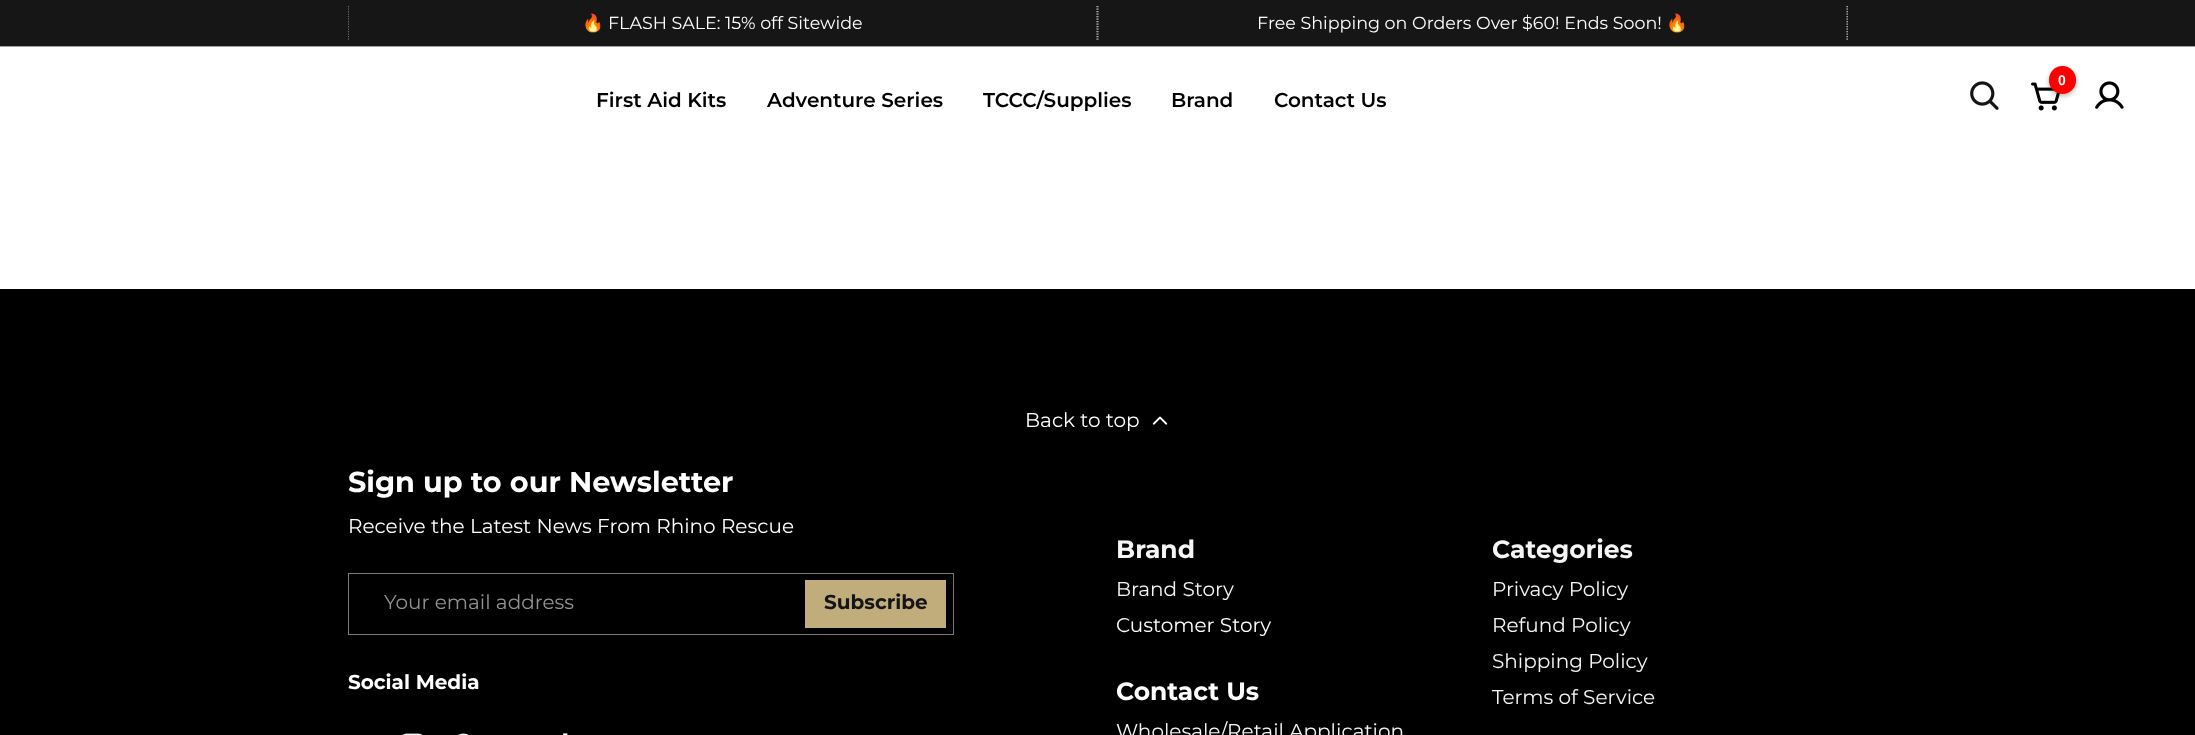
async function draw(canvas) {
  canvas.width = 2195
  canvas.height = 735
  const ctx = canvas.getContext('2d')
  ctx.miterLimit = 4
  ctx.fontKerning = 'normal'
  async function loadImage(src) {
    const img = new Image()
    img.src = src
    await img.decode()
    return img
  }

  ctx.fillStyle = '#fff'
  ctx.fillRect(0, 0, 2195, 735)
  ctx.fillStyle = '#161616'
  ctx.fillRect(0, 0, 2195, 46)
  ctx.fillStyle = '#9e9e9e'
  ctx.fillRect(0, 46, 2195, 1)
  ctx.beginPath()
  ctx.moveTo(1097, 6)
  ctx.lineTo(1097, 40)
  ctx.strokeStyle = '#ababab'
  ctx.lineWidth = 1.2
  ctx.setLineDash([1.25, 1.25])
  ctx.stroke()
  ctx.save()
  ctx.beginPath()
  ctx.rect(348, 0, 1500, 46)
  ctx.clip()
  ctx.beginPath()
  ctx.moveTo(348, 6)
  ctx.lineTo(348, 40)
  ctx.stroke()
  ctx.restore()
  ctx.save()
  ctx.beginPath()
  ctx.rect(583, 8, 280, 31)
  ctx.clip()
  ctx.font = '17.5px Noto Color Emoji'
  ctx.fillStyle = '#fff'
  ctx.fillText('🔥', 582, 29)
  ctx.restore()
  ctx.font = '17.5px Montserrat'
  ctx.fillStyle = '#fff'
  ctx.fillText('FLASH SALE: 15% off Sitewide', 608, 29)
  ctx.beginPath()
  ctx.moveTo(1847, 6)
  ctx.lineTo(1847, 40)
  ctx.stroke()
  ctx.beginPath()
  ctx.moveTo(1098, 6)
  ctx.lineTo(1098, 40)
  ctx.strokeStyle = '#ffffffa3'
  ctx.stroke()
  ctx.fillText('Free Shipping on Orders Over $60! Ends Soon!', 1257, 29)
  ctx.font = '17.5px Noto Color Emoji'
  ctx.fillText('🔥', 1666, 29)
  ctx.save()
  ctx.beginPath()
  ctx.rect(348, 0, 1500, 46)
  ctx.clip()
  ctx.beginPath()
  ctx.moveTo(1848, 6)
  ctx.lineTo(1848, 40)
  ctx.stroke()
  ctx.restore()
  ctx.drawImage(await loadImage('image0.png'), 1970, 81, 29, 29)
  ctx.drawImage(await loadImage('image1.png'), 2031, 82, 29, 29)
  ctx.fillStyle = '#0000004d'
  ctx.filter = 'blur(2.5px)'
  ctx.beginPath()
  ctx.roundRect(2049, 69, 27, 27, 13.5)
  ctx.fill()
  ctx.filter = 'none'
  ctx.fillStyle = '#f00'
  ctx.beginPath()
  ctx.roundRect(2049, 66, 27, 28, 13.5)
  ctx.fill()
  ctx.font = 'bold 14px Liberation Sans'
  ctx.fillStyle = '#fff'
  ctx.fillText('0', 2058, 85)
  ctx.drawImage(await loadImage('image2.png'), 2095, 81, 29, 28)
  ctx.font = '600 20px Montserrat'
  ctx.fillStyle = '#000'
  ctx.fillText('First Aid Kits', 596, 107)
  ctx.fillText('Adventure Series', 767, 107)
  ctx.fillText('TCCC/Supplies', 983, 107)
  ctx.fillText('Brand', 1171, 107)
  ctx.fillText('Contact Us', 1274, 107)
  ctx.fillRect(0, 289, 2195, 446)
  ctx.font = '20px Montserrat'
  ctx.fillStyle = '#fff'
  ctx.fillText('Back to top', 1025, 427)
  ctx.drawImage(await loadImage('image3.png'), 1152, 416, 16, 9)
  ctx.font = 'bold 28.75px Montserrat'
  ctx.fillText('Sign up to our Newsletter', 348, 492)
  ctx.font = '20px Montserrat'
  ctx.fillText('Receive the Latest News From Rhino Rescue', 348, 533)
  ctx.strokeStyle = '#7a7a7a'
  ctx.lineWidth = 1
  ctx.setLineDash([])
  ctx.strokeRect(348.5, 573.5, 605, 61)
  ctx.fillStyle = '#929292'
  ctx.fillText('Your email address', 384, 609)
  ctx.fillStyle = '#c0ad7b'
  ctx.fillRect(805, 580, 141, 48)
  ctx.font = 'bold 20px Montserrat'
  ctx.fillStyle = '#151515'
  ctx.fillText('Subscribe', 824, 609)
  ctx.fillStyle = '#fff'
  ctx.fillText('Social Media', 348, 689)
  ctx.drawImage(await loadImage('image4.png'), 402, 733, 21, 2)
  ctx.drawImage(await loadImage('image5.png'), 458, 733, 11, 2)
  ctx.drawImage(await loadImage('image6.png'), 563, 733, 5, 2)
  ctx.font = 'bold 25px Montserrat'
  ctx.fillStyle = '#f5f5f5'
  ctx.fillText('Brand', 1116, 558)
  ctx.font = '20px Montserrat'
  ctx.fillText('Brand Story', 1116, 596)
  ctx.fillStyle = '#fff'
  ctx.fillText('Customer Story', 1116, 632)
  ctx.font = 'bold 25px Montserrat'
  ctx.fillText('Contact Us', 1116, 700)
  ctx.font = '20px Montserrat'
  ctx.fillStyle = '#f5f5f5'
  ctx.fillText('Wholesale/Retail Application', 1116, 738)
  ctx.font = 'bold 25px Montserrat'
  ctx.fillText('Categories', 1492, 558)
  ctx.font = '20px Montserrat'
  ctx.fillText('Privacy Policy', 1492, 596)
  ctx.fillText('Refund Policy', 1492, 632)
  ctx.fillText('Shipping Policy', 1492, 668)
  ctx.fillText('Terms of Service', 1492, 704)
}

draw(document.querySelector('canvas'))
